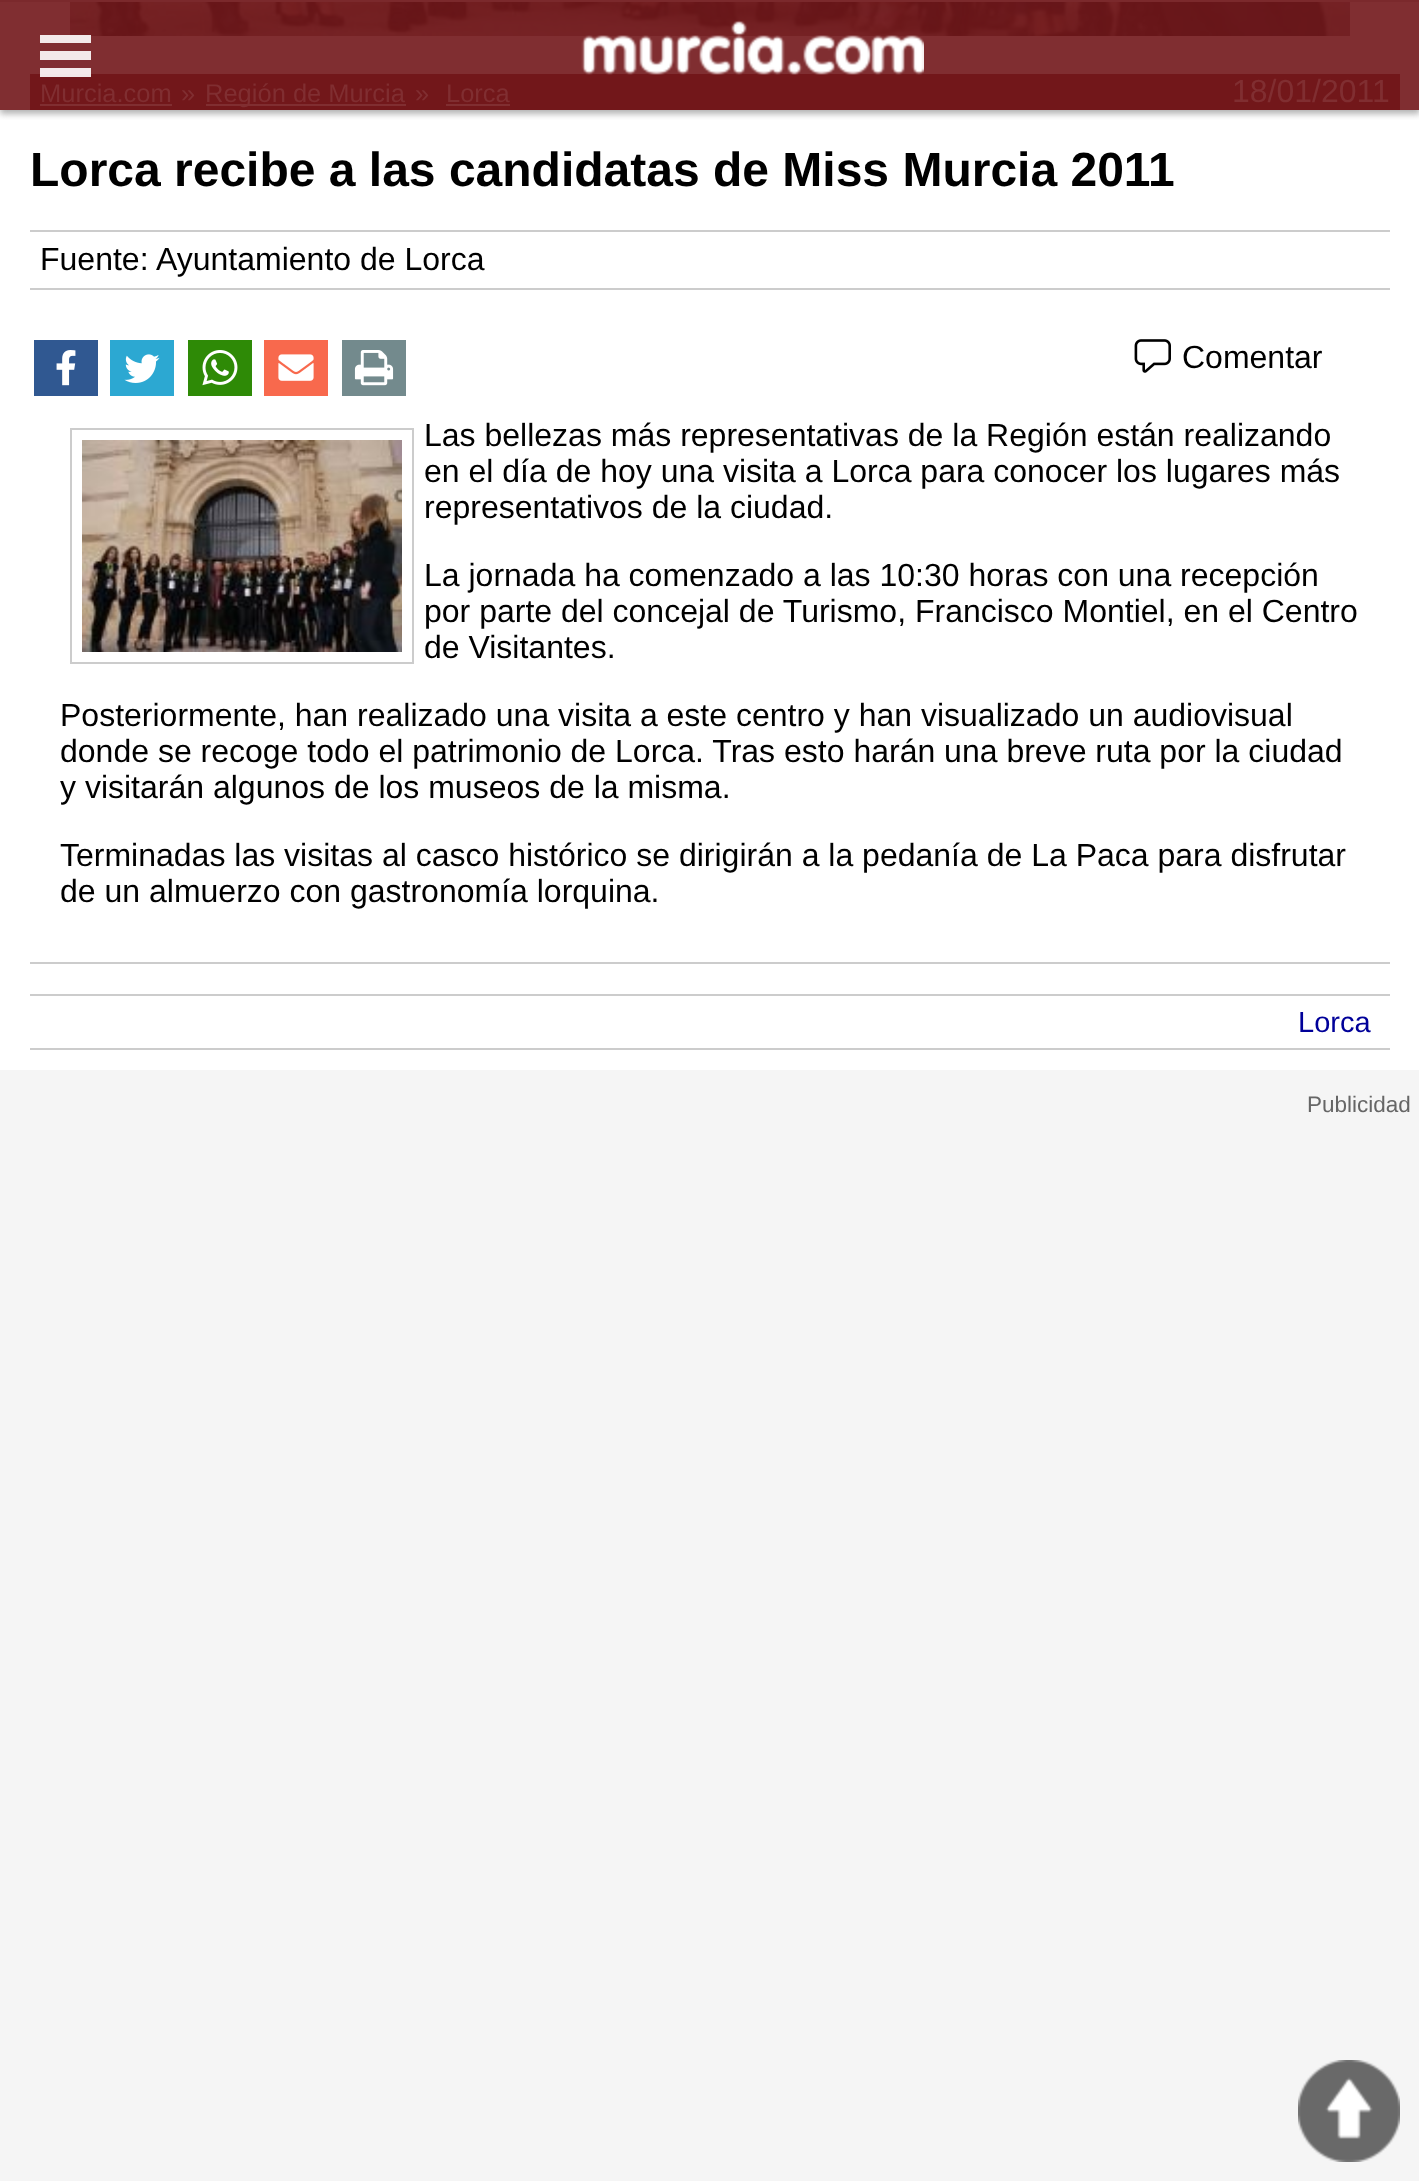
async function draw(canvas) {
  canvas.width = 1419
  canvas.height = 2181
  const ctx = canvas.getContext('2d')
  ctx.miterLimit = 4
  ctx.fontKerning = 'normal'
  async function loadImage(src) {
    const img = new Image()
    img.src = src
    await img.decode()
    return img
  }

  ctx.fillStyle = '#fff'
  ctx.fillRect(0, 0, 1419, 2181)
  ctx.fillStyle = '#7b292c'
  ctx.fillRect(0, 0, 1419, 2)
  ctx.fillStyle = '#802e31'
  ctx.fillRect(0, 2, 1419, 108)
  ctx.drawImage(await loadImage('image1.png'), 70, 2, 1280, 34)
  ctx.fillStyle = '#72171a'
  ctx.fillRect(30, 74, 1370, 36)
  ctx.fillStyle = '#802e31'
  ctx.fillRect(40, 104, 132, 2)
  ctx.fillRect(206, 104, 200, 2)
  ctx.fillRect(446, 104, 64, 2)
  ctx.save()
  ctx.beginPath()
  ctx.rect(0, 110, 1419, 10)
  ctx.clip()
  ctx.fillStyle = '#b3b3b3'
  ctx.filter = 'blur(3px)'
  ctx.beginPath()
  ctx.rect(0, 4, 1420, 110)
  ctx.fill()
  ctx.filter = 'none'
  ctx.restore()
  ctx.drawImage(await loadImage('image0.png'), 581, 20, 343, 55)
  ctx.fillStyle = '#ffffffe6'
  ctx.beginPath()
  ctx.moveTo(91, 43)
  ctx.lineTo(40, 43)
  ctx.lineTo(40, 35)
  ctx.lineTo(91, 35)
  ctx.closePath()
  ctx.moveTo(91, 60)
  ctx.lineTo(40, 60)
  ctx.lineTo(40, 51)
  ctx.lineTo(91, 51)
  ctx.closePath()
  ctx.moveTo(40, 77)
  ctx.lineTo(91, 77)
  ctx.lineTo(91, 68)
  ctx.lineTo(40, 68)
  ctx.closePath()
  ctx.fill('evenodd')
  ctx.font = '25.5px Liberation Sans'
  ctx.fillStyle = '#802e31'
  ctx.fillText('Murcia.com', 40, 102)
  ctx.fillText('»', 181, 102)
  ctx.fillText('Región de Murcia', 205, 102)
  ctx.fillText('»', 415, 102)
  ctx.fillText('Lorca', 446, 102)
  ctx.font = '32px Liberation Sans'
  ctx.fillText('18/01/2011', 1232, 102)
  ctx.font = 'bold 48px Liberation Sans'
  ctx.fillStyle = '#000'
  ctx.fillText('Lorca recibe a las candidatas de Miss Murcia 2011', 30, 186)
  ctx.fillStyle = '#ccc'
  ctx.fillRect(30, 230, 1360, 2)
  ctx.fillRect(30, 288, 1360, 2)
  ctx.font = '32px Liberation Sans'
  ctx.fillStyle = '#000'
  ctx.fillText('Fuente:', 40, 270)
  ctx.fillText('Ayuntamiento de Lorca', 156, 270)
  ctx.fillStyle = '#ccc'
  ctx.fillRect(30, 962, 1360, 2)
  ctx.fillStyle = '#305891'
  ctx.fillRect(34, 340, 64, 56)
  ctx.drawImage(await loadImage('image2.png'), 56, 350, 20, 36)
  ctx.fillStyle = '#2ca8d2'
  ctx.fillRect(110, 340, 64, 56)
  ctx.drawImage(await loadImage('image3.png'), 124, 354, 36, 29)
  ctx.fillStyle = '#2e8a06'
  ctx.fillRect(188, 340, 64, 56)
  ctx.drawImage(await loadImage('image4.png'), 202, 350, 36, 36)
  ctx.fillStyle = '#f8694d'
  ctx.fillRect(264, 340, 64, 56)
  ctx.drawImage(await loadImage('image5.png'), 278, 354, 36, 27)
  ctx.fillStyle = '#738a8d'
  ctx.fillRect(342, 340, 64, 56)
  ctx.drawImage(await loadImage('image6.png'), 354, 350, 40, 36)
  ctx.drawImage(await loadImage('image7.png'), 1134, 339, 37, 34)
  ctx.fillStyle = '#000'
  ctx.fillText('Comentar', 1182, 368)
  ctx.strokeStyle = '#ccc'
  ctx.lineWidth = 2
  ctx.strokeRect(71, 429, 342, 234)
  ctx.drawImage(await loadImage('image8.png'), 82, 440, 320, 212)
  ctx.fillText('Las bellezas más representativas de la Región están realizando', 424, 446)
  ctx.fillText('en el día de hoy una visita a Lorca para conocer los lugares más', 424, 482)
  ctx.fillText('representativos de la ciudad.', 424, 518)
  ctx.fillText('La jornada ha comenzado a las 10:30 horas con una recepción', 424, 586)
  ctx.fillText('por parte del concejal de Turismo, Francisco Montiel, en el Centro', 424, 622)
  ctx.fillText('de Visitantes.', 424, 658)
  ctx.fillText('Posteriormente, han realizado una visita a este centro y han visualizado un audiovisual', 60, 726)
  ctx.fillText('donde se recoge todo el patrimonio de Lorca. Tras esto harán una breve ruta por la ciudad', 60, 762)
  ctx.fillText('y visitarán algunos de los museos de la misma.', 60, 798)
  ctx.fillText('Terminadas las visitas al casco histórico se dirigirán a la pedanía de La Paca para disfrutar', 60, 866)
  ctx.fillText('de un almuerzo con gastronomía lorquina.', 60, 902)
  ctx.fillStyle = '#ccc'
  ctx.fillRect(30, 994, 1360, 2)
  ctx.fillRect(30, 1048, 1360, 2)
  ctx.font = '29px Liberation Sans'
  ctx.fillStyle = '#009'
  ctx.fillText('Lorca', 1298, 1032)
  ctx.fillStyle = '#f5f5f5'
  ctx.fillRect(0, 1070, 1419, 1111)
  ctx.font = '22.5px Liberation Sans'
  ctx.fillStyle = '#666'
  ctx.fillText('Publicidad', 1307, 1112)
  ctx.drawImage(await loadImage('image9.png'), 1298, 2060, 102, 102)
}

draw(document.querySelector('canvas'))
